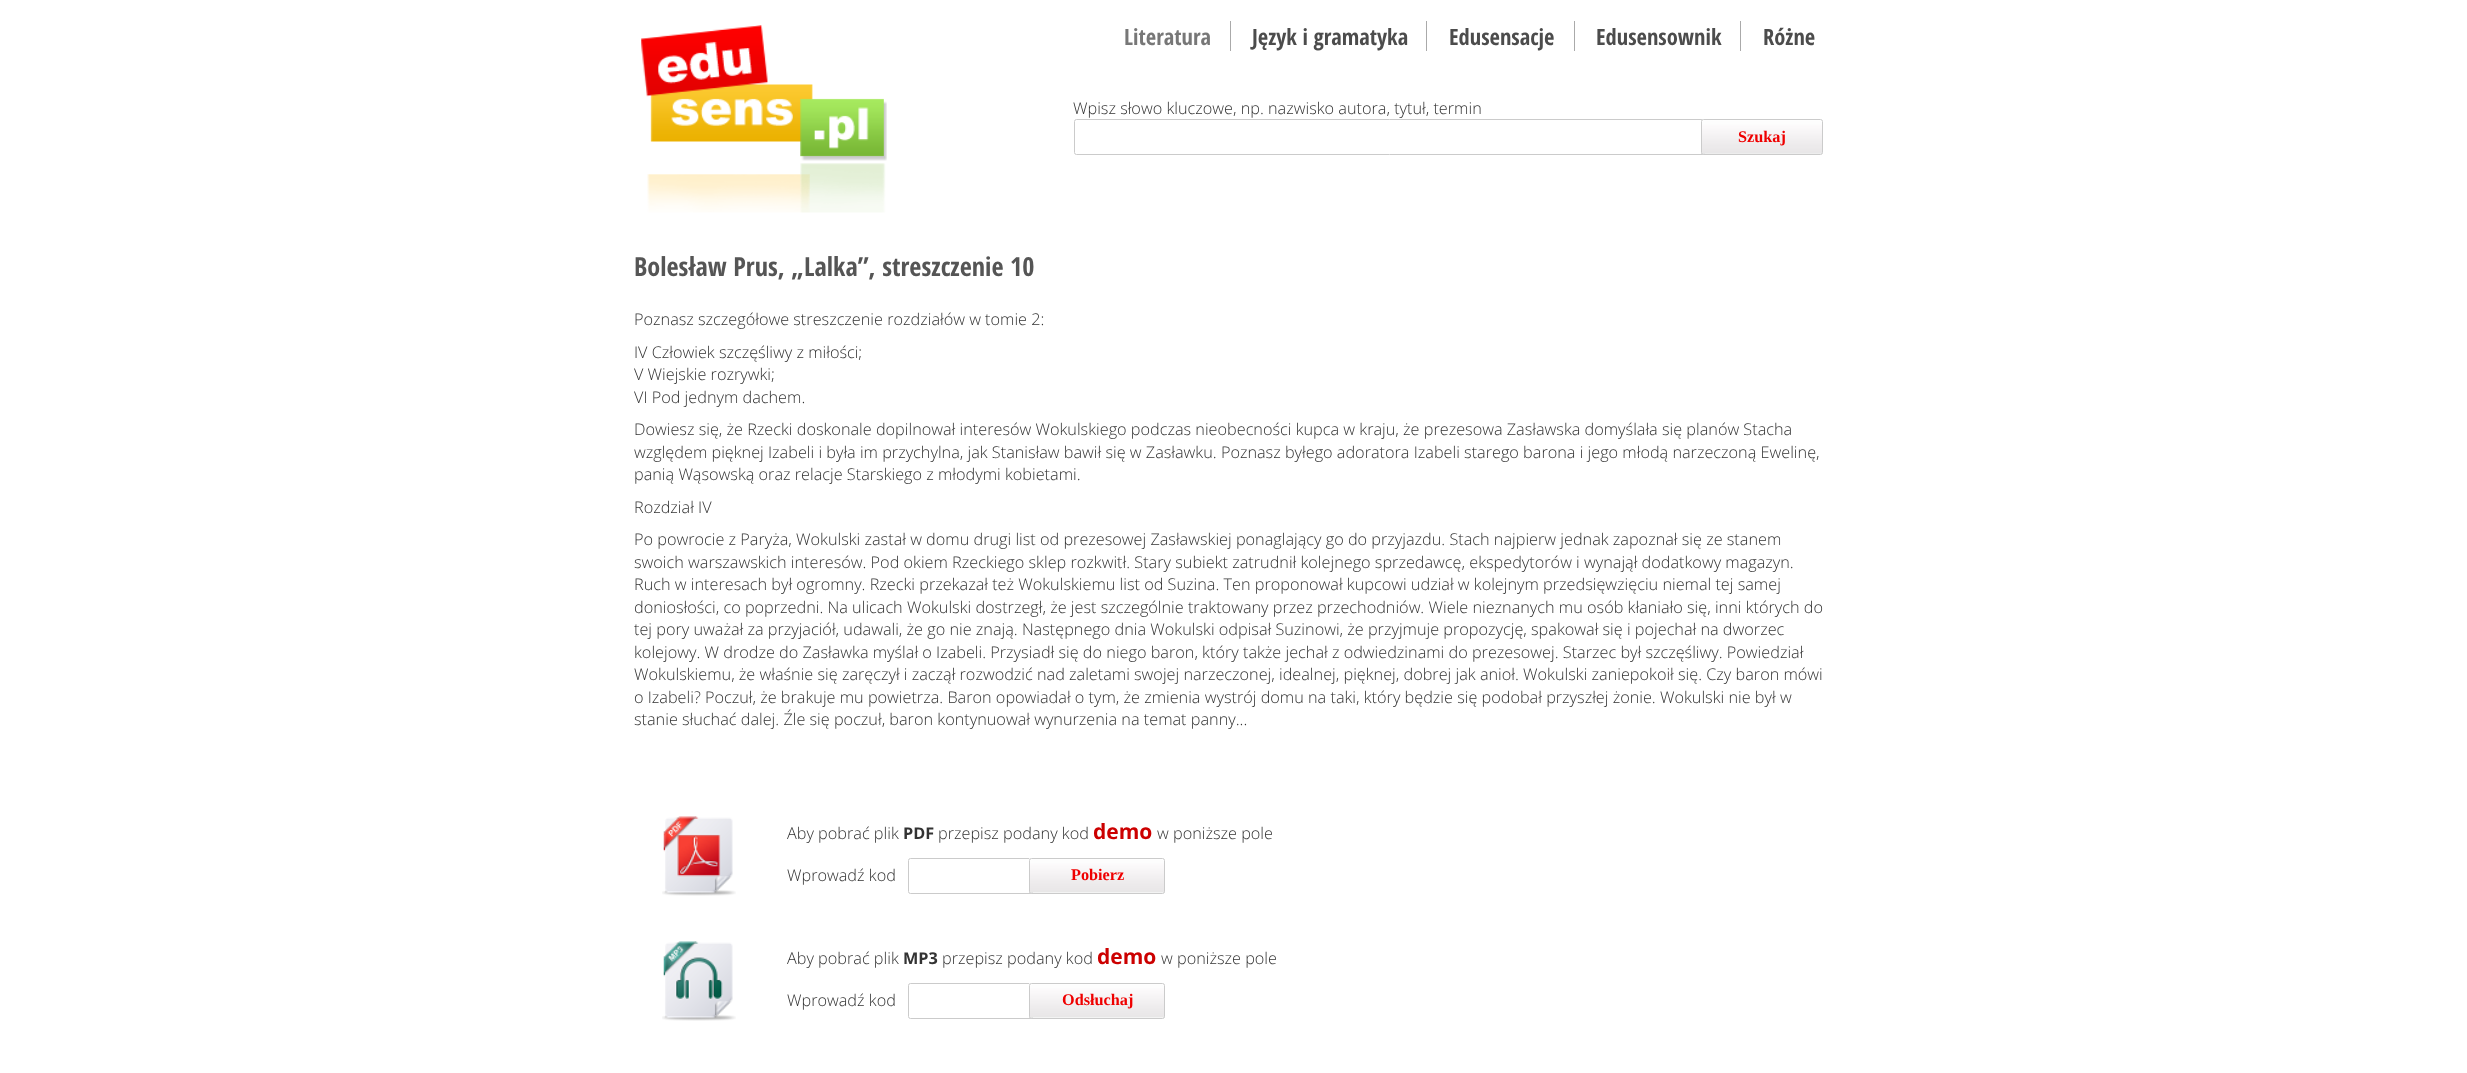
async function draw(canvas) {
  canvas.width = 2467
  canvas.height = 1073
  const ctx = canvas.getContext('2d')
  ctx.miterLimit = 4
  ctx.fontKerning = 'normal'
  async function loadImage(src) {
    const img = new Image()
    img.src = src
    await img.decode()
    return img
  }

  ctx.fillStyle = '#fff'
  ctx.fillRect(0, 0, 2467, 1073)
  ctx.drawImage(await loadImage('image0.png'), 641, 25, 246, 188)
  ctx.fillStyle = '#aaa'
  ctx.fillRect(1230, 21, 1, 30)
  ctx.font = 'bold 22.5px Open Sans Condensed'
  ctx.fillStyle = '#777'
  ctx.fillText('Literatura', 1124, 45)
  ctx.fillStyle = '#aaa'
  ctx.fillRect(1426, 21, 1, 30)
  ctx.fillStyle = '#4c4c4c'
  ctx.fillText('Język i gramatyka', 1252, 45)
  ctx.fillStyle = '#aaa'
  ctx.fillRect(1574, 21, 1, 30)
  ctx.fillStyle = '#4c4c4c'
  ctx.fillText('Edusensacje', 1449, 45)
  ctx.fillStyle = '#aaa'
  ctx.fillRect(1740, 21, 1, 30)
  ctx.fillStyle = '#4c4c4c'
  ctx.fillText('Edusensownik', 1596, 45)
  ctx.fillText('Różne', 1763, 45)
  ctx.font = '300 16.25px Open Sans'
  ctx.fillStyle = '#333'
  ctx.fillText('Wpisz słowo kluczowe, np. nazwisko autora, tytuł, termin', 1073, 114)
  ctx.beginPath()
  ctx.roundRect(1074.5, 119.5, 630, 35, 2)
  ctx.strokeStyle = '#cbcbcb'
  ctx.stroke()
  ctx.drawImage(await loadImage('image1.png'), 1701, 119, 122, 35)
  ctx.beginPath()
  ctx.roundRect(1701.5, 119.5, 121, 35, 2)
  ctx.stroke()
  ctx.font = 'bold 16.25px Liberation Serif'
  ctx.fillStyle = '#ef0000'
  ctx.fillText('Szukaj', 1738, 142)
  ctx.font = 'bold 26.25px Open Sans Condensed'
  ctx.fillStyle = '#555'
  ctx.fillText('Bolesław Prus, „Lalka”, streszczenie 10', 634, 276)
  ctx.font = '300 16.25px Open Sans'
  ctx.fillStyle = '#333'
  ctx.fillText('Poznasz szczegółowe streszczenie rozdziałów w tomie 2:', 634, 325)
  ctx.fillText('IV Człowiek szczęśliwy z miłości;', 634, 358)
  ctx.fillText('V Wiejskie rozrywki;', 634, 380)
  ctx.fillText('VI Pod jednym dachem.', 634, 403)
  ctx.fillText('Dowiesz się, że Rzecki doskonale dopilnował interesów Wokulskiego podczas nieobecności kupca w kraju, że prezesowa Zasławska domyślała się planów Stacha', 634, 435)
  ctx.fillText('względem pięknej Izabeli i była im przychylna, jak Stanisław bawił się w Zasławku. Poznasz byłego adoratora Izabeli starego barona i jego młodą narzeczoną Ewelinę,', 634, 458)
  ctx.fillText('panią Wąsowską oraz relacje Starskiego z młodymi kobietami.', 634, 480)
  ctx.fillText('Rozdział IV', 634, 513)
  ctx.fillText('Po powrocie z Paryża, Wokulski zastał w domu drugi list od prezesowej Zasławskiej ponaglający go do przyjazdu. Stach najpierw jednak zapoznał się ze stanem', 634, 545)
  ctx.fillText('swoich warszawskich interesów. Pod okiem Rzeckiego sklep rozkwitł. Stary subiekt zatrudnił kolejnego sprzedawcę, ekspedytorów i wynajął dodatkowy magazyn.', 634, 568)
  ctx.fillText('Ruch w interesach był ogromny. Rzecki przekazał też Wokulskiemu list od Suzina. Ten proponował kupcowi udział w kolejnym przedsięwzięciu niemal tej samej', 634, 590)
  ctx.fillText('doniosłości, co poprzedni. Na ulicach Wokulski dostrzegł, że jest szczególnie traktowany przez przechodniów. Wiele nieznanych mu osób kłaniało się, inni których do', 634, 613)
  ctx.fillText('tej pory uważał za przyjaciół, udawali, że go nie znają. Następnego dnia Wokulski odpisał Suzinowi, że przyjmuje propozycję, spakował się i pojechał na dworzec', 634, 635)
  ctx.fillText('kolejowy. W drodze do Zasławka myślał o Izabeli. Przysiadł się do niego baron, który także jechał z odwiedzinami do prezesowej. Starzec był szczęśliwy. Powiedział', 634, 658)
  ctx.fillText('Wokulskiemu, że właśnie się zaręczył i zaczął rozwodzić nad zaletami swojej narzeczonej, idealnej, pięknej, dobrej jak anioł. Wokulski zaniepokoił się. Czy baron mówi', 634, 680)
  ctx.fillText('o Izabeli? Poczuł, że brakuje mu powietrza. Baron opowiadał o tym, że zmienia wystrój domu na taki, który będzie się podobał przyszłej żonie. Wokulski nie był w', 634, 703)
  ctx.fillText('stanie słuchać dalej. Źle się poczuł, baron kontynuował wynurzenia na temat panny...', 634, 725)
  ctx.drawImage(await loadImage('image2.png'), 662, 816, 74, 80)
  ctx.fillText('Aby pobrać plik', 787, 839)
  ctx.font = 'bold 16.25px Open Sans'
  ctx.fillText('PDF', 903, 839)
  ctx.font = '300 16.25px Open Sans'
  ctx.fillText('przepisz podany kod', 938, 839)
  ctx.font = 'bold 21px Open Sans'
  ctx.fillStyle = '#c00'
  ctx.fillText('demo', 1093, 839)
  ctx.font = '300 16.25px Open Sans'
  ctx.fillStyle = '#333'
  ctx.fillText('w poniższe pole', 1157, 839)
  ctx.fillText('Wprowadź kod', 787, 881)
  ctx.beginPath()
  ctx.roundRect(908.5, 858.5, 124, 35, 2)
  ctx.stroke()
  ctx.drawImage(await loadImage('image3.png'), 1029, 858, 136, 35)
  ctx.beginPath()
  ctx.roundRect(1029.5, 858.5, 135, 35, 2)
  ctx.stroke()
  ctx.font = 'bold 16.25px Liberation Serif'
  ctx.fillStyle = '#ef0000'
  ctx.fillText('Pobierz', 1071, 880)
  ctx.drawImage(await loadImage('image4.png'), 662, 941, 74, 80)
  ctx.font = '300 16.25px Open Sans'
  ctx.fillStyle = '#333'
  ctx.fillText('Aby pobrać plik', 787, 964)
  ctx.font = 'bold 16.25px Open Sans'
  ctx.fillText('MP3', 903, 964)
  ctx.font = '300 16.25px Open Sans'
  ctx.fillText('przepisz podany kod', 942, 964)
  ctx.font = 'bold 21px Open Sans'
  ctx.fillStyle = '#c00'
  ctx.fillText('demo', 1097, 964)
  ctx.font = '300 16.25px Open Sans'
  ctx.fillStyle = '#333'
  ctx.fillText('w poniższe pole', 1161, 964)
  ctx.fillText('Wprowadź kod', 787, 1006)
  ctx.beginPath()
  ctx.roundRect(908.5, 983.5, 124, 35, 2)
  ctx.stroke()
  ctx.drawImage(await loadImage('image3.png'), 1029, 983, 136, 35)
  ctx.beginPath()
  ctx.roundRect(1029.5, 983.5, 135, 35, 2)
  ctx.stroke()
  ctx.font = 'bold 16.25px Liberation Serif'
  ctx.fillStyle = '#ef0000'
  ctx.fillText('Odsłuchaj', 1062, 1005)
}

draw(document.querySelector('canvas'))
